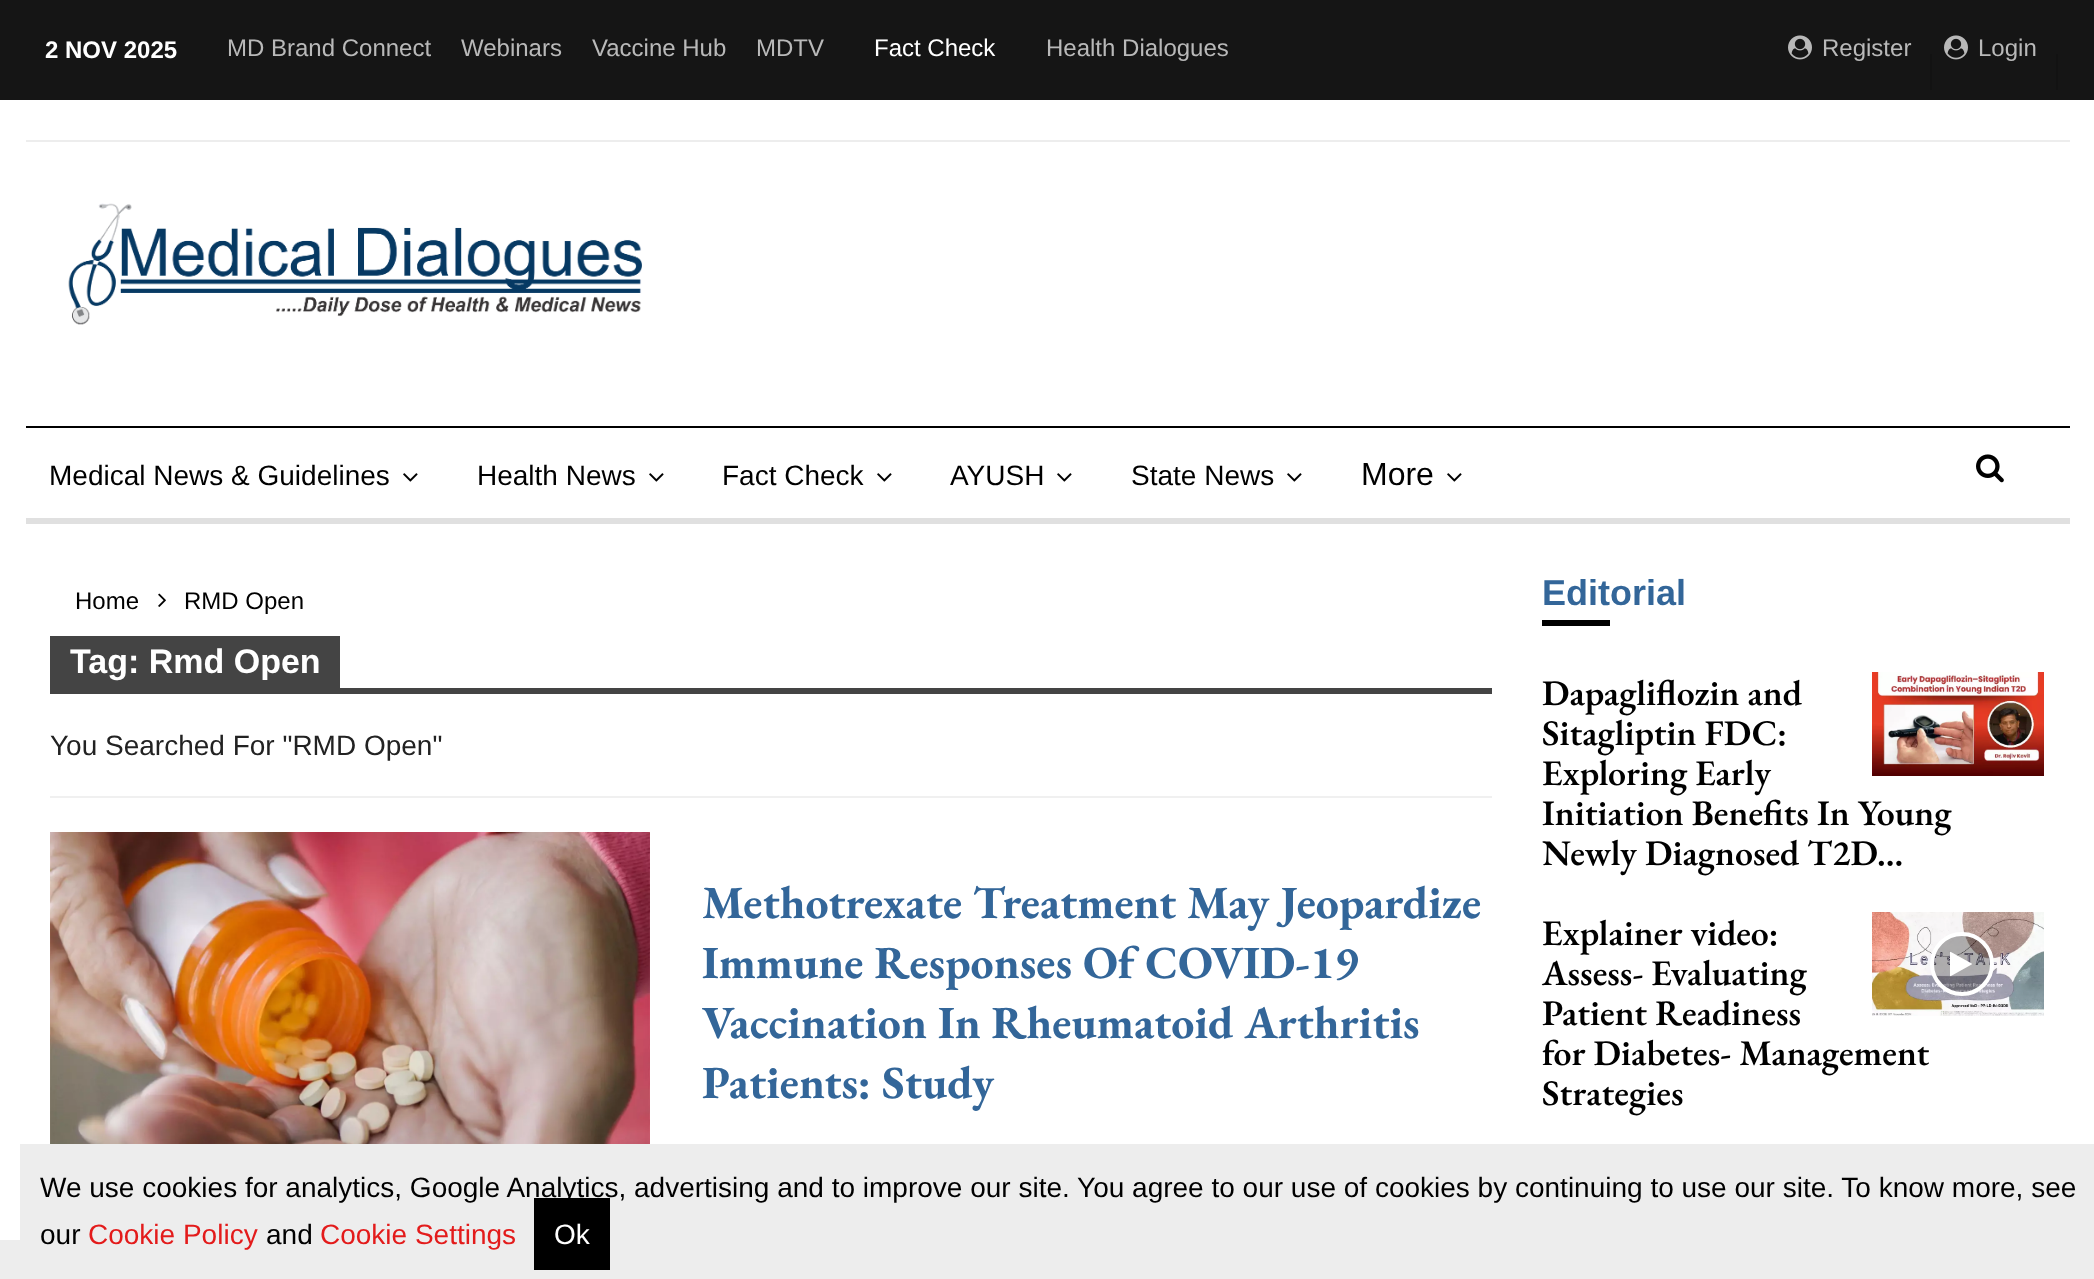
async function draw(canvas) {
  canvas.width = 2094
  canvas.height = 1279
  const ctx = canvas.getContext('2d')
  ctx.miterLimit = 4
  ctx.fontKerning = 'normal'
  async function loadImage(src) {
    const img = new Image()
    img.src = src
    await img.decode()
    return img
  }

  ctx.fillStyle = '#fff'
  ctx.fillRect(0, 0, 2094, 1279)
  ctx.fillStyle = '#151515'
  ctx.fillRect(0, 0, 2094, 100)
  ctx.fillStyle = '#ededed'
  ctx.fillRect(26, 140, 2044, 2)
  ctx.font = 'bold 24px Liberation Sans'
  ctx.fillStyle = '#fff'
  ctx.fillText('2 NOV 2025', 45, 58)
  ctx.font = '24px Liberation Sans'
  ctx.fillStyle = '#b9b9b9'
  ctx.fillText('MD Brand Connect', 227, 56)
  ctx.fillText('Webinars', 461, 56)
  ctx.fillText('Vaccine Hub', 592, 56)
  ctx.fillText('MDTV', 756, 56)
  ctx.fillStyle = '#fff'
  ctx.fillText('Fact Check', 874, 56)
  ctx.fillStyle = '#b9b9b9'
  ctx.fillText('Health Dialogues', 1046, 56)
  ctx.drawImage(await loadImage('image0.png'), 1788, 35, 24, 25)
  ctx.fillText('Register', 1822, 56)
  ctx.fillStyle = '#121212'
  ctx.fillRect(1930, 54, 2, 36)
  ctx.drawImage(await loadImage('image0.png'), 1944, 35, 24, 25)
  ctx.fillStyle = '#b9b9b9'
  ctx.fillText('Login', 1978, 56)
  ctx.fillStyle = '#121212'
  ctx.fillRect(2056, 54, 2, 36)
  ctx.drawImage(await loadImage('image1.png'), 68, 203, 574, 122)
  ctx.fillStyle = '#000'
  ctx.fillRect(26, 426, 2044, 2)
  ctx.fillStyle = '#e0e0e0'
  ctx.fillRect(26, 518, 2044, 6)
  ctx.font = '28px Liberation Sans'
  ctx.fillStyle = '#000'
  ctx.fillText('Medical News & Guidelines', 49, 485)
  ctx.drawImage(await loadImage('image2.png'), 403, 473, 15, 9)
  ctx.fillText('Health News', 477, 485)
  ctx.drawImage(await loadImage('image2.png'), 649, 473, 15, 9)
  ctx.fillText('Fact Check', 722, 485)
  ctx.drawImage(await loadImage('image2.png'), 877, 473, 15, 9)
  ctx.fillText('AYUSH', 950, 485)
  ctx.drawImage(await loadImage('image2.png'), 1057, 473, 15, 9)
  ctx.fillText('State News', 1131, 485)
  ctx.drawImage(await loadImage('image2.png'), 1287, 473, 15, 9)
  ctx.font = '32px Liberation Sans'
  ctx.fillText('More', 1361, 485)
  ctx.drawImage(await loadImage('image2.png'), 1447, 473, 15, 9)
  ctx.drawImage(await loadImage('image3.png'), 1976, 454, 28, 29)
  ctx.font = '24px Liberation Sans'
  ctx.fillText('Home', 75, 609)
  ctx.drawImage(await loadImage('image4.png'), 158, 593, 8, 14)
  ctx.fillText('RMD Open', 184, 609)
  ctx.fillStyle = '#f0f0f0'
  ctx.fillRect(50, 796, 1442, 2)
  ctx.fillStyle = '#444'
  ctx.fillRect(50, 636, 290, 52)
  ctx.font = 'bold 34px Liberation Sans'
  ctx.fillStyle = '#fff'
  ctx.fillText('Tag: Rmd Open', 70, 673)
  ctx.fillStyle = '#444'
  ctx.fillRect(50, 688, 1442, 6)
  ctx.font = '28px Liberation Sans'
  ctx.fillStyle = '#222'
  ctx.fillText('You Searched For "RMD Open"', 50, 755)
  ctx.drawImage(await loadImage('image5.png'), 50, 832, 600, 312)
  ctx.font = 'bold 46px EB Garamond'
  ctx.fillStyle = '#369'
  ctx.fillText('Methotrexate Treatment May Jeopardize', 702, 918)
  ctx.fillText('Immune Responses Of COVID-19', 702, 978)
  ctx.fillText('Vaccination In Rheumatoid Arthritis', 702, 1038)
  ctx.fillText('Patients: Study', 702, 1098)
  ctx.font = 'bold 36px Liberation Sans'
  ctx.fillText('Editorial', 1542, 605)
  ctx.fillStyle = '#000'
  ctx.fillRect(1542, 620, 68, 6)
  ctx.font = '600 36px EB Garamond'
  ctx.fillText('Dapagliflozin and', 1542, 705)
  ctx.fillText('Sitagliptin FDC:', 1542, 745)
  ctx.fillText('Exploring Early', 1542, 785)
  ctx.fillText('Initiation Benefits In Young', 1542, 825)
  ctx.fillText('Newly Diagnosed T2D...', 1542, 865)
  ctx.drawImage(await loadImage('image6.png'), 1872, 672, 172, 104)
  ctx.fillText('Explainer video:', 1542, 945)
  ctx.fillText('Assess- Evaluating', 1542, 985)
  ctx.fillText('Patient Readiness', 1542, 1025)
  ctx.fillText('for Diabetes- Management', 1542, 1065)
  ctx.fillText('Strategies', 1542, 1105)
  ctx.drawImage(await loadImage('image7.png'), 1872, 912, 172, 104)
  ctx.fillStyle = '#0000004d'
  ctx.beginPath()
  ctx.arc(1962, 964, 30, 0, 2 * Math.PI)
  ctx.fill()
  ctx.strokeStyle = '#fff'
  ctx.lineWidth = 4
  ctx.stroke()
  ctx.drawImage(await loadImage('image8.png'), 1950, 951, 22, 26)
  ctx.fillStyle = '#ededed'
  ctx.fillRect(0, 1240, 20, 39)
  ctx.fillRect(20, 1144, 2074, 135)
  ctx.font = '28px Liberation Sans'
  ctx.fillStyle = '#000'
  ctx.fillText('We use cookies for analytics, Google Analytics, advertising and to improve our site. You agree to our use of cookies by continuing to use our site. To know more, see', 40, 1197)
  ctx.fillText('our', 40, 1244)
  ctx.fillStyle = '#e31b1b'
  ctx.fillText('Cookie Policy', 88, 1244)
  ctx.fillStyle = '#000'
  ctx.fillText('and', 266, 1244)
  ctx.fillStyle = '#e31b1b'
  ctx.fillText('Cookie Settings', 320, 1244)
  ctx.fillStyle = '#000'
  ctx.fillRect(534, 1198, 76, 72)
  ctx.fillStyle = '#fff'
  ctx.fillText('Ok', 554, 1244)
}

draw(document.querySelector('canvas'))
